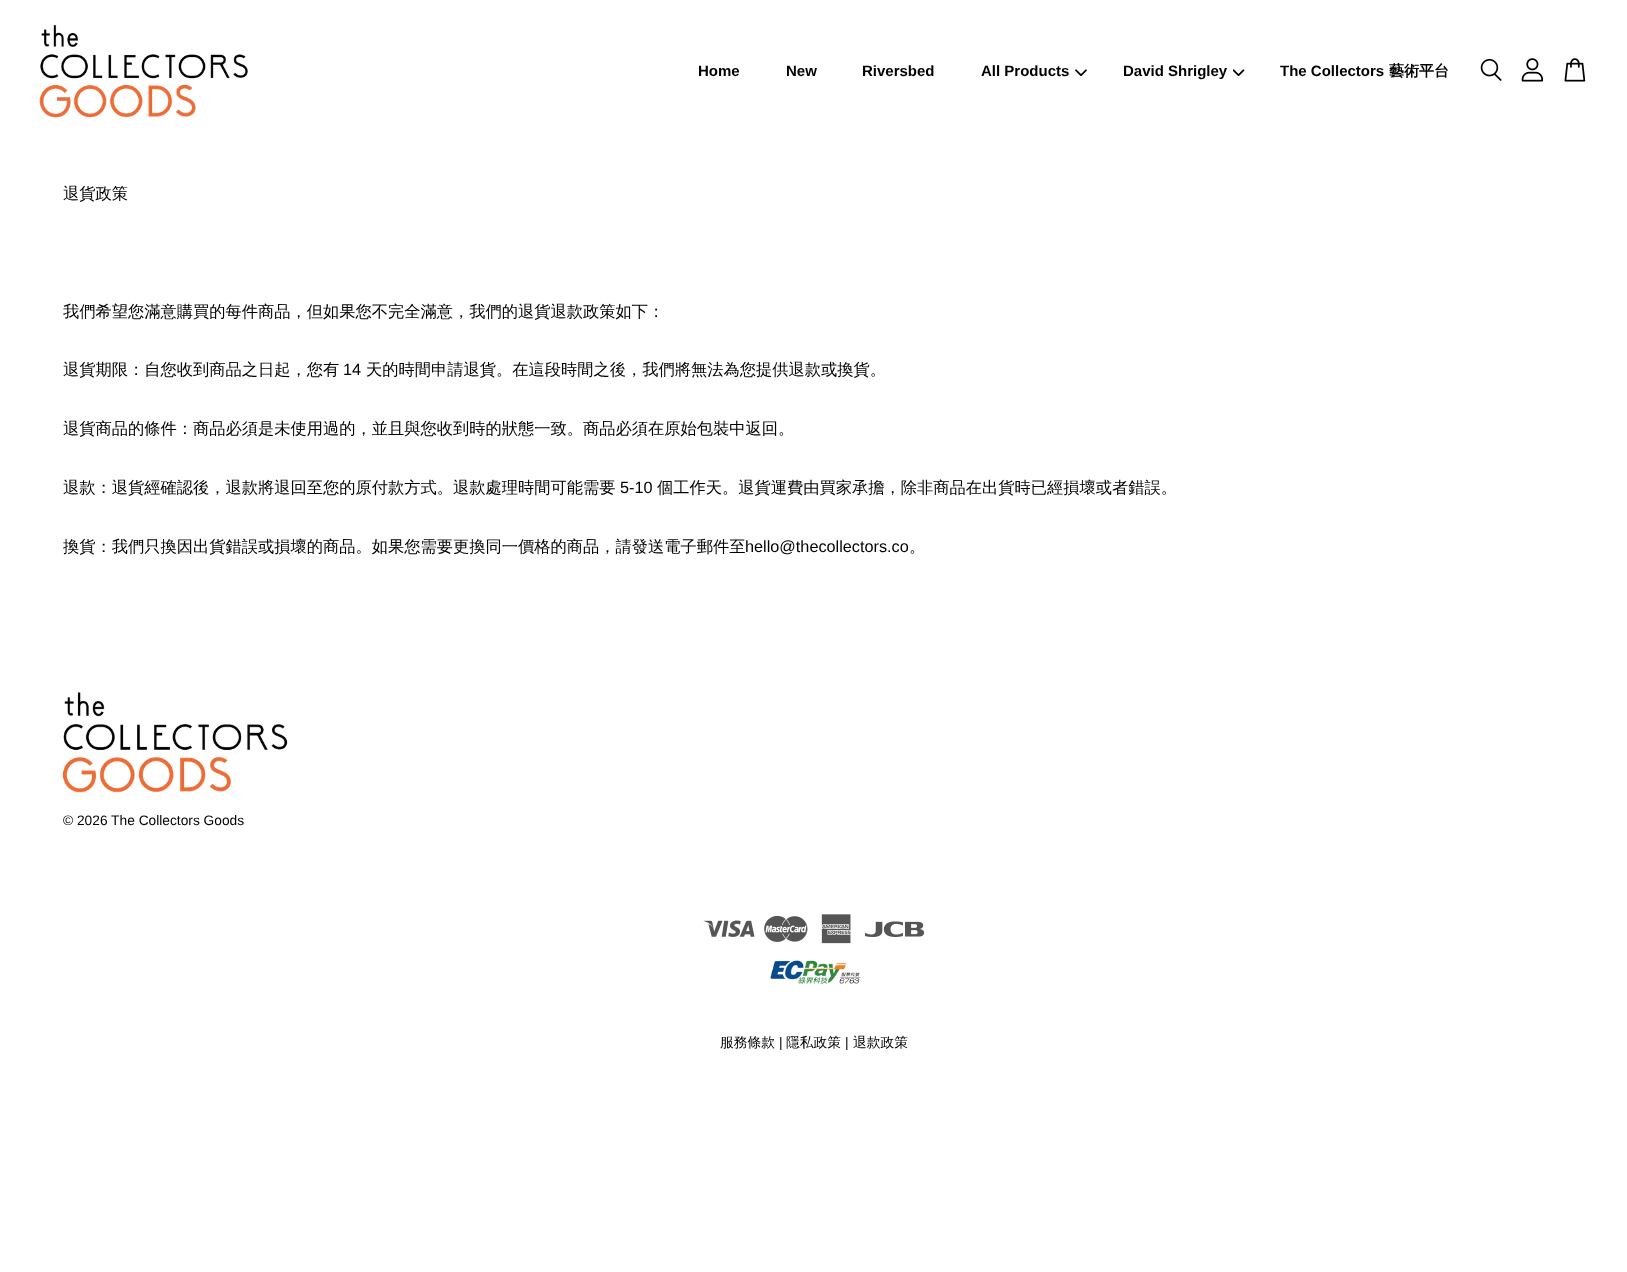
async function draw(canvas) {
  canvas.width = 1627
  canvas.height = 1272
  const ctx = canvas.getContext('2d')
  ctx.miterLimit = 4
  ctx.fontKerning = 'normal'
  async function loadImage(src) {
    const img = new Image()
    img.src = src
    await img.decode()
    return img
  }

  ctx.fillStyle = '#fff'
  ctx.fillRect(0, 0, 1627, 1272)
  ctx.drawImage(await loadImage('image0.png'), 39, 24, 209, 94)
  ctx.font = 'bold 15px Liberation Sans'
  ctx.fillStyle = '#000'
  ctx.fillText('Home', 698, 76)
  ctx.fillText('New', 786, 76)
  ctx.fillText('Riversbed', 862, 76)
  ctx.fillText('All Products', 981, 76)
  ctx.drawImage(await loadImage('image1.png'), 1075, 69, 12, 7)
  ctx.fillText('David Shrigley', 1123, 76)
  ctx.drawImage(await loadImage('image2.png'), 1233, 69, 12, 8)
  ctx.fillText('The Collectors', 1280, 76)
  ctx.font = 'bold 15px WenQuanYi Zen Hei'
  ctx.fillText('藝術平台', 1389, 76)
  ctx.drawImage(await loadImage('image3.png'), 1480, 59, 22, 22)
  ctx.drawImage(await loadImage('image4.png'), 1521, 58, 23, 24)
  ctx.drawImage(await loadImage('image5.png'), 1564, 58, 22, 24)
  ctx.font = '500 16.25px WenQuanYi Zen Hei'
  ctx.fillText('退貨政策', 63, 199)
  ctx.fillText('我們希望您滿意購買的每件商品，但如果您不完全滿意，我們的退貨退款政策如下：', 63, 317)
  ctx.fillText('退貨期限：自您收到商品之日起，您有', 63, 375)
  ctx.font = '16.25px Liberation Sans'
  ctx.fillText('14', 343, 375)
  ctx.font = '500 16.25px WenQuanYi Zen Hei'
  ctx.fillText('天的時間申請退貨。在這段時間之後，我們將無法為您提供退款或換貨。', 366, 375)
  ctx.fillText('退貨商品的條件：商品必須是未使用過的，並且與您收到時的狀態一致。商品必須在原始包裝中返回。', 63, 434)
  ctx.fillText('退款：退貨經確認後，退款將退回至您的原付款方式。退款處理時間可能需要', 63, 493)
  ctx.font = '16.25px Liberation Sans'
  ctx.fillText('5-10', 620, 493)
  ctx.font = '500 16.25px WenQuanYi Zen Hei'
  ctx.fillText('個工作天。退貨運費由買家承擔，除非商品在出貨時已經損壞或者錯誤。', 657, 493)
  ctx.fillText('換貨：我們只換因出貨錯誤或損壞的商品。如果您需要更換同一價格的商品，請發送電子郵件至', 63, 552)
  ctx.font = '16.25px Liberation Sans'
  ctx.fillText('hello@thecollectors.co', 745, 552)
  ctx.font = '500 16.25px WenQuanYi Zen Hei'
  ctx.fillText('。', 909, 552)
  ctx.drawImage(await loadImage('image6.png'), 62, 692, 226, 101)
  ctx.font = '13.75px Liberation Sans'
  ctx.fillText('© 2026 The Collectors Goods', 63, 825)
  ctx.drawImage(await loadImage('image7.png'), 703, 920, 52, 17)
  ctx.drawImage(await loadImage('image8.png'), 764, 915, 44, 27)
  ctx.drawImage(await loadImage('image9.png'), 821, 914, 30, 30)
  ctx.drawImage(await loadImage('image10.png'), 865, 921, 60, 16)
  ctx.drawImage(await loadImage('image11.png'), 770, 960, 91, 24)
  ctx.font = '500 13.75px WenQuanYi Zen Hei'
  ctx.fillText('服務條款', 720, 1047)
  ctx.font = '13.75px Liberation Sans'
  ctx.fillText('|', 779, 1047)
  ctx.font = '500 13.75px WenQuanYi Zen Hei'
  ctx.fillText('隱私政策', 786, 1047)
  ctx.font = '13.75px Liberation Sans'
  ctx.fillText('|', 845, 1047)
  ctx.font = '500 13.75px WenQuanYi Zen Hei'
  ctx.fillText('退款政策', 853, 1047)
}

draw(document.querySelector('canvas'))
